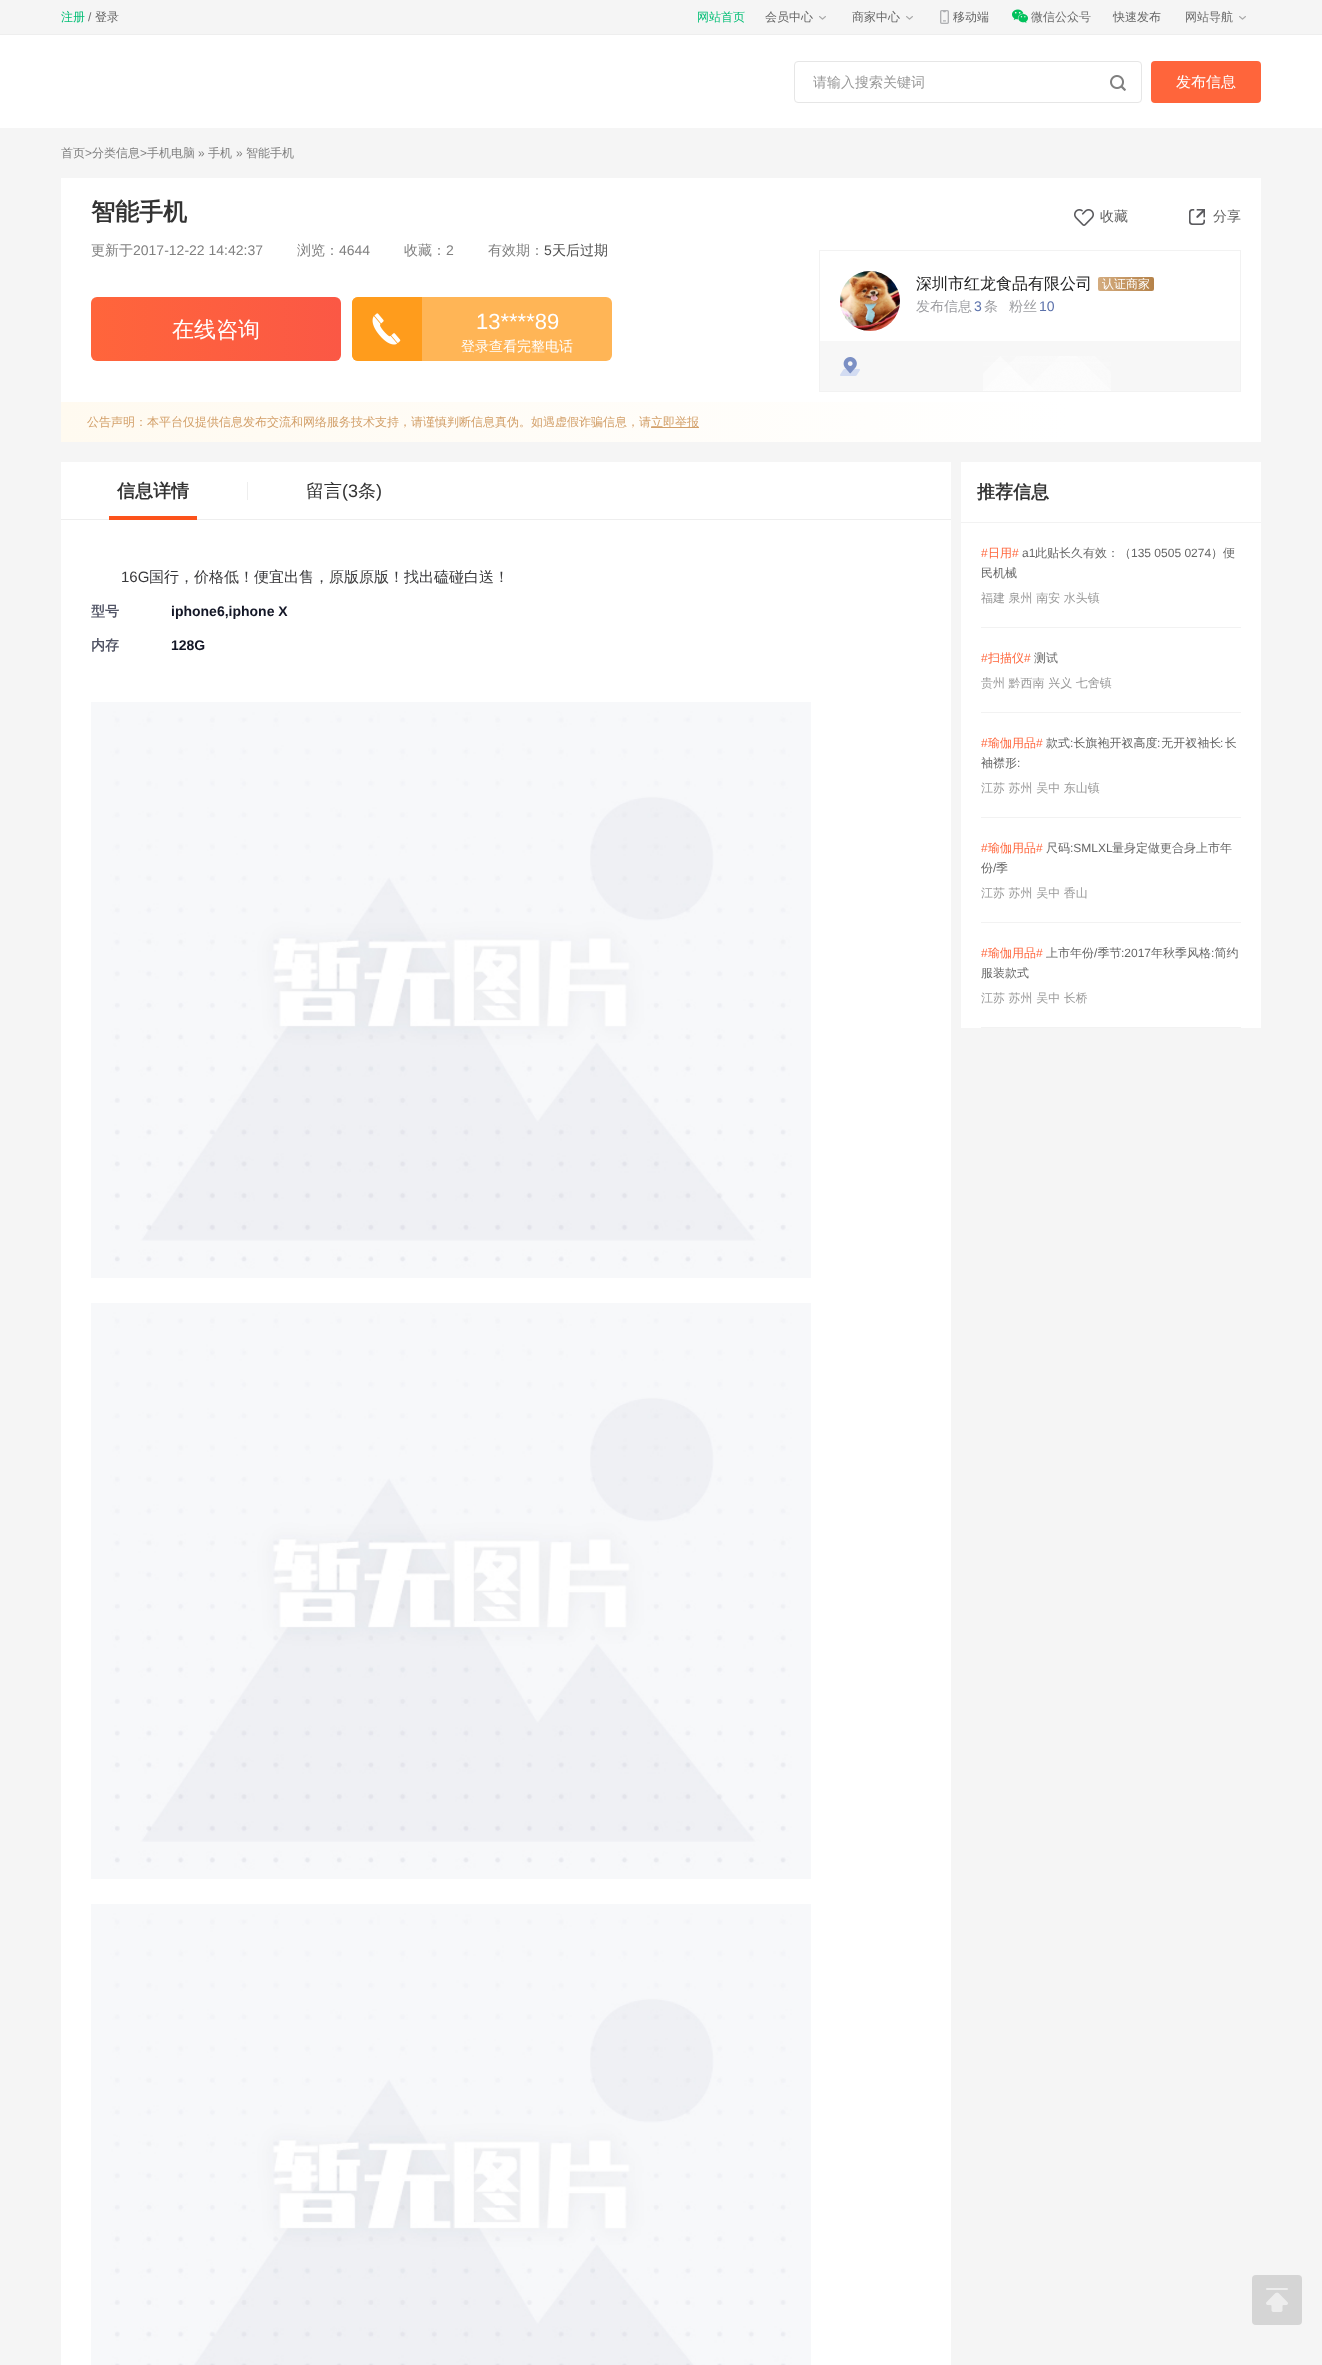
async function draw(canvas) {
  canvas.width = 1322
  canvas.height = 2365
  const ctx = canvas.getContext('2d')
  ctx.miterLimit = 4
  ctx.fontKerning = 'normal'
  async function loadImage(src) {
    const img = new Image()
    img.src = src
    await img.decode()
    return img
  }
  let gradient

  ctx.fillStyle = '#fff'
  ctx.fillRect(0, 0, 1322, 2365)
  ctx.fillStyle = '#f5f5f5'
  ctx.fillRect(0, 0, 1322, 34)
  ctx.fillStyle = '#eee'
  ctx.fillRect(0, 34, 1322, 1)
  ctx.font = '500 12px WenQuanYi Zen Hei'
  ctx.fillStyle = '#07bf77'
  ctx.fillText('注册', 61, 21)
  ctx.font = '12px Liberation Sans'
  ctx.fillStyle = '#6c6c6c'
  ctx.fillText('/', 88, 21)
  ctx.font = '500 12px WenQuanYi Zen Hei'
  ctx.fillStyle = '#666'
  ctx.fillText('登录', 95, 21)
  ctx.fillStyle = '#07bf77'
  ctx.fillText('网站首页', 697, 21)
  ctx.fillStyle = '#666'
  ctx.fillText('会员中心', 765, 21)
  ctx.drawImage(await loadImage('image0.png'), 819, 16, 7, 4)
  ctx.fillText('商家中心', 852, 21)
  ctx.drawImage(await loadImage('image0.png'), 906, 16, 7, 4)
  ctx.drawImage(await loadImage('image1.png'), 940, 10, 9, 14)
  ctx.fillText('移动端', 953, 21)
  ctx.drawImage(await loadImage('image2.png'), 1012, 9, 16, 14)
  ctx.fillStyle = '#6c6c6c'
  ctx.fillText('微信公众号', 1031, 21)
  ctx.fillStyle = '#666'
  ctx.fillText('快速发布', 1113, 21)
  ctx.fillStyle = '#6c6c6c'
  ctx.fillText('网站导航', 1185, 21)
  ctx.drawImage(await loadImage('image0.png'), 1239, 16, 7, 4)
  ctx.beginPath()
  ctx.roundRect(794.5, 61.5, 347, 41, 3.5)
  ctx.strokeStyle = '#e6e6e6'
  ctx.stroke()
  ctx.font = '500 14px WenQuanYi Zen Hei'
  ctx.fillStyle = '#999'
  ctx.fillText('请输入搜索关键词', 813, 87)
  ctx.drawImage(await loadImage('image3.png'), 1110, 75, 16, 16)
  ctx.fillStyle = '#ff653b'
  ctx.beginPath()
  ctx.roundRect(1151, 61, 110, 42, 4)
  ctx.fill()
  ctx.font = '500 15px WenQuanYi Zen Hei'
  ctx.fillStyle = '#fff'
  ctx.fillText('发布信息', 1176, 87)
  ctx.fillStyle = '#f5f5f5'
  ctx.fillRect(0, 128, 1322, 2237)
  ctx.font = '500 12px WenQuanYi Zen Hei'
  ctx.fillStyle = '#808080'
  ctx.fillText('首页', 61, 157)
  ctx.font = '12px Liberation Sans'
  ctx.fillText('>', 85, 157)
  ctx.font = '500 12px WenQuanYi Zen Hei'
  ctx.fillText('分类信息', 92, 157)
  ctx.font = '12px Liberation Sans'
  ctx.fillText('>', 140, 157)
  ctx.font = '500 12px WenQuanYi Zen Hei'
  ctx.fillText('手机电脑', 147, 157)
  ctx.font = '12px Liberation Sans'
  ctx.fillText('»', 198, 157)
  ctx.font = '500 12px WenQuanYi Zen Hei'
  ctx.fillText('手机', 208, 157)
  ctx.font = '12px Liberation Sans'
  ctx.fillText('»', 236, 157)
  ctx.font = '500 12px WenQuanYi Zen Hei'
  ctx.fillText('智能手机', 246, 157)
  ctx.fillStyle = '#fff'
  ctx.fillRect(61, 178, 1200, 224)
  ctx.font = 'bold 24px WenQuanYi Zen Hei'
  ctx.fillStyle = '#333'
  ctx.fillText('智能手机', 91, 220)
  ctx.drawImage(await loadImage('image4.png'), 1074, 209, 20, 17)
  ctx.font = '500 14px WenQuanYi Zen Hei'
  ctx.fillStyle = '#5e5e5e'
  ctx.fillText('收藏', 1100, 221)
  ctx.drawImage(await loadImage('image5.png'), 1189, 209, 16, 16)
  ctx.fillText('分享', 1213, 221)
  ctx.fillStyle = '#808080'
  ctx.fillText('更新于', 91, 255)
  ctx.font = '14px Liberation Sans'
  ctx.fillText('2017-12-22 14:42:37', 133, 255)
  ctx.font = '500 14px WenQuanYi Zen Hei'
  ctx.fillText('浏览：', 297, 255)
  ctx.font = '14px Liberation Sans'
  ctx.fillText('4644', 339, 255)
  ctx.font = '500 14px WenQuanYi Zen Hei'
  ctx.fillText('收藏：', 404, 255)
  ctx.font = '14px Liberation Sans'
  ctx.fillText('2', 446, 255)
  ctx.font = '500 14px WenQuanYi Zen Hei'
  ctx.fillText('有效期：', 488, 255)
  ctx.font = '14px Liberation Sans'
  ctx.fillStyle = '#4d4d4d'
  ctx.fillText('5', 544, 255)
  ctx.font = '500 14px WenQuanYi Zen Hei'
  ctx.fillText('天后过期', 552, 255)
  gradient = ctx.createLinearGradient(91, 329, 341, 329)
  gradient.addColorStop(0, '#ff653b')
  gradient.addColorStop(1, '#fb5845')
  ctx.fillStyle = gradient
  ctx.beginPath()
  ctx.roundRect(91, 297, 250, 64, 6)
  ctx.fill()
  ctx.font = '500 22px WenQuanYi Zen Hei'
  ctx.fillStyle = '#fff'
  ctx.fillText('在线咨询', 172, 337)
  ctx.fillStyle = '#ffb556'
  ctx.beginPath()
  ctx.roundRect(352, 297, 260, 64, 6)
  ctx.fill()
  ctx.fillStyle = '#ff9c1c'
  ctx.beginPath()
  ctx.roundRect(352, 297, 70, 64, [6, 0, 0, 6])
  ctx.fill()
  ctx.drawImage(await loadImage('image6.png'), 372, 313, 29, 32)
  ctx.font = '22px Liberation Sans'
  ctx.fillStyle = '#fff'
  ctx.fillText('13****89', 476, 329)
  ctx.font = '500 14px WenQuanYi Zen Hei'
  ctx.fillText('登录查看完整电话', 461, 351)
  ctx.strokeStyle = '#f2f2f2'
  ctx.strokeRect(819.5, 250.5, 421, 141)
  ctx.drawImage(await loadImage('image7.png'), 840, 271, 60, 60)
  ctx.font = '500 16px WenQuanYi Zen Hei'
  ctx.fillStyle = '#202021'
  ctx.fillText('深圳市红龙食品有限公司', 916, 289)
  gradient = ctx.createLinearGradient(1098, 284, 1154, 284)
  gradient.addColorStop(0, '#d4ac7f')
  gradient.addColorStop(1, '#b58249')
  ctx.fillStyle = gradient
  ctx.beginPath()
  ctx.roundRect(1098, 277, 56, 14, 2)
  ctx.fill()
  ctx.font = '500 12px WenQuanYi Zen Hei'
  ctx.fillStyle = '#fff'
  ctx.fillText('认证商家', 1102, 288)
  ctx.font = '500 14px WenQuanYi Zen Hei'
  ctx.fillStyle = '#9c9da1'
  ctx.fillText('发布信息', 916, 311)
  ctx.font = '14px Liberation Sans'
  ctx.fillStyle = '#5b71ab'
  ctx.fillText('3', 974, 311)
  ctx.font = '500 14px WenQuanYi Zen Hei'
  ctx.fillStyle = '#9c9da1'
  ctx.fillText('条', 984, 311)
  ctx.fillText('粉丝', 1009, 311)
  ctx.font = '14px Liberation Sans'
  ctx.fillStyle = '#5b71ab'
  ctx.fillText('10', 1039, 311)
  ctx.fillStyle = '#f7f7f7'
  ctx.fillRect(820, 341, 420, 50)
  ctx.drawImage(await loadImage('image8.png'), 840, 357, 20, 19)
  ctx.drawImage(await loadImage('image9.png'), 983, 356, 128, 35)
  gradient = ctx.createLinearGradient(61, 422, 1261, 422)
  gradient.addColorStop(0, '#fffaf0')
  gradient.addColorStop(0.84, '#fff')
  gradient.addColorStop(1, '#fff')
  ctx.fillStyle = gradient
  ctx.fillRect(61, 402, 1200, 40)
  ctx.font = '500 12px WenQuanYi Zen Hei'
  ctx.fillStyle = '#d3a06a'
  ctx.fillText('公告声明：本平台仅提供信息发布交流和网络服务技术支持，请谨慎判断信息真伪。如遇虚假诈骗信息，请', 87, 426)
  ctx.fillRect(651, 427, 48, 1)
  ctx.fillText('立即举报', 651, 426)
  ctx.fillStyle = '#fff'
  ctx.fillRect(61, 462, 890, 1903)
  ctx.fillStyle = '#eee'
  ctx.fillRect(61, 519, 890, 1)
  ctx.fillStyle = '#fc521b'
  ctx.fillRect(109, 516, 88, 4)
  ctx.font = 'bold 18px WenQuanYi Zen Hei'
  ctx.fillStyle = '#333'
  ctx.fillText('信息详情', 117, 497)
  ctx.fillStyle = '#eee'
  ctx.fillRect(247, 482, 1, 18)
  ctx.font = '500 18px WenQuanYi Zen Hei'
  ctx.fillStyle = '#333'
  ctx.fillText('留言', 306, 497)
  ctx.font = '18px Liberation Sans'
  ctx.fillText('(3', 342, 497)
  ctx.font = '500 18px WenQuanYi Zen Hei'
  ctx.fillText('条', 358, 497)
  ctx.font = '18px Liberation Sans'
  ctx.fillText(')', 376, 497)
  ctx.font = '15px Liberation Sans'
  ctx.fillStyle = '#39393b'
  ctx.fillText('16G', 121, 582)
  ctx.font = '500 15px WenQuanYi Zen Hei'
  ctx.fillText('国行，价格低！便宜出售，原版原版！找出磕碰白送！', 149, 582)
  ctx.font = 'bold 14px WenQuanYi Zen Hei'
  ctx.fillStyle = '#525566'
  ctx.fillText('型号', 91, 616)
  ctx.font = 'bold 14px Liberation Sans'
  ctx.fillStyle = '#131626'
  ctx.fillText('iphone6,iphone X', 171, 616)
  ctx.font = 'bold 14px WenQuanYi Zen Hei'
  ctx.fillStyle = '#525566'
  ctx.fillText('内存', 91, 650)
  ctx.font = 'bold 14px Liberation Sans'
  ctx.fillStyle = '#131626'
  ctx.fillText('128G', 171, 650)
  ctx.drawImage(await loadImage('image10.png'), 91, 702, 720, 576)
  ctx.drawImage(await loadImage('image11.png'), 91, 1303, 720, 576)
  ctx.drawImage(await loadImage('image12.png'), 91, 1904, 720, 461)
  ctx.fillStyle = '#fff'
  ctx.fillRect(961, 462, 300, 566)
  ctx.fillStyle = '#f2f2f2'
  ctx.fillRect(961, 522, 300, 1)
  ctx.font = 'bold 18px WenQuanYi Zen Hei'
  ctx.fillStyle = '#333'
  ctx.fillText('推荐信息', 977, 498)
  ctx.fillStyle = '#f2f2f2'
  ctx.fillRect(981, 627, 260, 1)
  ctx.font = '12px Liberation Sans'
  ctx.fillStyle = '#ff653b'
  ctx.fillText('#', 981, 557)
  ctx.font = '500 12px WenQuanYi Zen Hei'
  ctx.fillText('日用', 988, 557)
  ctx.font = '12px Liberation Sans'
  ctx.fillText('#', 1012, 557)
  ctx.fillStyle = '#666'
  ctx.fillText('a1', 1022, 557)
  ctx.font = '500 12px WenQuanYi Zen Hei'
  ctx.fillText('此贴长久有效：（', 1035, 557)
  ctx.font = '12px Liberation Sans'
  ctx.fillText('135 0505 0274', 1131, 557)
  ctx.font = '500 12px WenQuanYi Zen Hei'
  ctx.fillText('）便', 1211, 557)
  ctx.fillText('民机械', 981, 577)
  ctx.fillStyle = '#999'
  ctx.fillText('福建 泉州 南安 水头镇', 981, 602)
  ctx.fillStyle = '#f2f2f2'
  ctx.fillRect(981, 712, 260, 1)
  ctx.font = '12px Liberation Sans'
  ctx.fillStyle = '#ff653b'
  ctx.fillText('#', 981, 662)
  ctx.font = '500 12px WenQuanYi Zen Hei'
  ctx.fillText('扫描仪', 988, 662)
  ctx.font = '12px Liberation Sans'
  ctx.fillText('#', 1024, 662)
  ctx.font = '500 12px WenQuanYi Zen Hei'
  ctx.fillStyle = '#666'
  ctx.fillText('测试', 1034, 662)
  ctx.fillStyle = '#999'
  ctx.fillText('贵州 黔西南 兴义 七舍镇', 981, 687)
  ctx.fillStyle = '#f2f2f2'
  ctx.fillRect(981, 817, 260, 1)
  ctx.font = '12px Liberation Sans'
  ctx.fillStyle = '#ff653b'
  ctx.fillText('#', 981, 747)
  ctx.font = '500 12px WenQuanYi Zen Hei'
  ctx.fillText('瑜伽用品', 988, 747)
  ctx.font = '12px Liberation Sans'
  ctx.fillText('#', 1036, 747)
  ctx.font = '500 12px WenQuanYi Zen Hei'
  ctx.fillStyle = '#666'
  ctx.fillText('款式 长旗袍开衩高度 无开衩袖长 长', 1046, 747)
  ctx.font = '12px Liberation Sans'
  ctx.fillText(':', 1070, 747)
  ctx.fillText(':', 1157, 747)
  ctx.fillText(':', 1220, 747)
  ctx.font = '500 12px WenQuanYi Zen Hei'
  ctx.fillText('袖襟形', 981, 767)
  ctx.font = '12px Liberation Sans'
  ctx.fillText(':', 1017, 767)
  ctx.font = '500 12px WenQuanYi Zen Hei'
  ctx.fillStyle = '#999'
  ctx.fillText('江苏 苏州 吴中 东山镇', 981, 792)
  ctx.fillStyle = '#f2f2f2'
  ctx.fillRect(981, 922, 260, 1)
  ctx.font = '12px Liberation Sans'
  ctx.fillStyle = '#ff653b'
  ctx.fillText('#', 981, 852)
  ctx.font = '500 12px WenQuanYi Zen Hei'
  ctx.fillText('瑜伽用品', 988, 852)
  ctx.font = '12px Liberation Sans'
  ctx.fillText('#', 1036, 852)
  ctx.font = '500 12px WenQuanYi Zen Hei'
  ctx.fillStyle = '#666'
  ctx.fillText('尺码', 1046, 852)
  ctx.font = '12px Liberation Sans'
  ctx.fillText(':SMLXL', 1070, 852)
  ctx.font = '500 12px WenQuanYi Zen Hei'
  ctx.fillText('量身定做更合身上市年', 1112, 852)
  ctx.fillText('份', 981, 872)
  ctx.font = '12px Liberation Sans'
  ctx.fillText('/', 993, 872)
  ctx.font = '500 12px WenQuanYi Zen Hei'
  ctx.fillText('季', 996, 872)
  ctx.fillStyle = '#999'
  ctx.fillText('江苏 苏州 吴中 香山', 981, 897)
  ctx.fillStyle = '#f2f2f2'
  ctx.fillRect(981, 1027, 260, 1)
  ctx.font = '12px Liberation Sans'
  ctx.fillStyle = '#ff653b'
  ctx.fillText('#', 981, 957)
  ctx.font = '500 12px WenQuanYi Zen Hei'
  ctx.fillText('瑜伽用品', 988, 957)
  ctx.font = '12px Liberation Sans'
  ctx.fillText('#', 1036, 957)
  ctx.font = '500 12px WenQuanYi Zen Hei'
  ctx.fillStyle = '#666'
  ctx.fillText('上市年份 季节', 1046, 957)
  ctx.fillText('年秋季风格 简约', 1151, 957)
  ctx.font = '12px Liberation Sans'
  ctx.fillText('/', 1094, 957)
  ctx.fillText(':2017', 1121, 957)
  ctx.fillText(':', 1211, 957)
  ctx.font = '500 12px WenQuanYi Zen Hei'
  ctx.fillText('服装款式', 981, 977)
  ctx.fillStyle = '#999'
  ctx.fillText('江苏 苏州 吴中 长桥', 981, 1002)
  ctx.fillStyle = '#d5d5d5'
  ctx.beginPath()
  ctx.roundRect(1252, 2275, 50, 50, 4)
  ctx.fill()
  ctx.drawImage(await loadImage('image13.png'), 1266, 2288, 22, 24)
}

draw(document.querySelector('canvas'))
